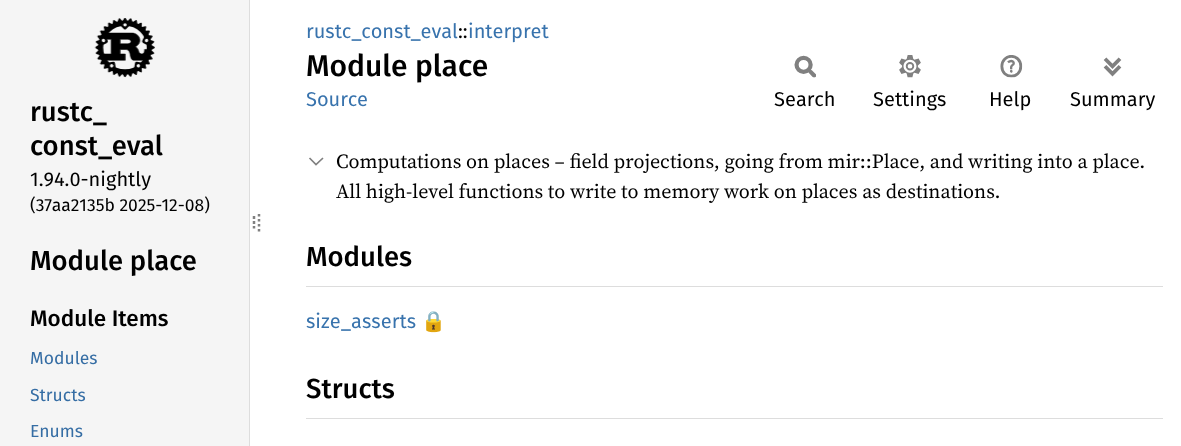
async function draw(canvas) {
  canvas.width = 1181
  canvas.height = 446
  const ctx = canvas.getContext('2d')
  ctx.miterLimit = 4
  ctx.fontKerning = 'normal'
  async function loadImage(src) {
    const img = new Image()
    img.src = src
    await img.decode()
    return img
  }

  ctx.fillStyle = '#fff'
  ctx.fillRect(0, 0, 1181, 446)
  ctx.fillStyle = '#f5f5f5'
  ctx.fillRect(0, 0, 249, 446)
  ctx.fillStyle = '#ddd'
  ctx.fillRect(249, 0, 1, 446)
  ctx.drawImage(await loadImage('image0.png'), 94, 18, 61, 60)
  ctx.font = '500 27.5px Fira Sans'
  ctx.fillStyle = '#000'
  ctx.fillText('rustc_', 30, 121)
  ctx.fillText('const_eval', 30, 155)
  ctx.font = '20px Fira Sans'
  ctx.fillText('1.94.0-nightly', 30, 186)
  ctx.font = '17.5px Fira Sans'
  ctx.fillText('(37aa2135b 2025-12-08)', 30, 211)
  ctx.font = '500 27.5px Fira Sans'
  ctx.fillText('Module place', 30, 270)
  ctx.font = '500 22.5px Fira Sans'
  ctx.fillText('Module Items', 30, 326)
  ctx.font = '17.5px Fira Sans'
  ctx.fillStyle = '#356da4'
  ctx.fillText('Modules', 30, 364)
  ctx.fillText('Structs', 30, 401)
  ctx.fillText('Enums', 30, 437)
  ctx.beginPath()
  ctx.moveTo(254, 216)
  ctx.lineTo(254, 219)
  ctx.moveTo(254, 221)
  ctx.lineTo(254, 224)
  ctx.moveTo(254, 226)
  ctx.lineTo(254, 228.5)
  ctx.strokeStyle = '#808080'
  ctx.lineWidth = 2.5
  ctx.stroke()
  ctx.beginPath()
  ctx.moveTo(259, 214)
  ctx.lineTo(259, 234)
  ctx.setLineDash([2.5, 2.5])
  ctx.stroke()
  ctx.font = '20px Fira Sans'
  ctx.fillStyle = '#3873ad'
  ctx.fillText('rustc_const_eval', 306, 38)
  ctx.fillStyle = '#000'
  ctx.fillText('::', 458, 38)
  ctx.fillStyle = '#3873ad'
  ctx.fillText('interpret', 468, 38)
  ctx.font = '500 30px Fira Sans'
  ctx.fillStyle = '#000'
  ctx.fillText('Module place', 306, 76)
  ctx.font = '20px Fira Sans'
  ctx.fillStyle = '#3873ad'
  ctx.fillText('Source', 306, 106)
  ctx.drawImage(await loadImage('image1.png'), 794, 55, 22, 23)
  ctx.fillStyle = '#000'
  ctx.fillText('Search', 774, 106)
  ctx.drawImage(await loadImage('image2.png'), 899, 55, 22, 23)
  ctx.fillText('Settings', 873, 106)
  ctx.drawImage(await loadImage('image3.png'), 1000, 55, 23, 23)
  ctx.fillText('Help', 989, 106)
  ctx.drawImage(await loadImage('image4.png'), 1103, 57, 19, 20)
  ctx.fillText('Summary', 1070, 106)
  ctx.beginPath()
  ctx.moveTo(309.5, 158)
  ctx.lineTo(316, 164.5)
  ctx.lineTo(323, 158)
  ctx.lineWidth = 1.7
  ctx.setLineDash([])
  ctx.stroke()
  ctx.font = '20px "Source Serif 4"'
  ctx.fillText('Computations on places – field projections, going from mir::Place, and writing into a place.', 336, 168)
  ctx.fillText('All high-level functions to write to memory work on places as destinations.', 336, 198)
  ctx.fillStyle = '#ddd'
  ctx.fillRect(306, 286, 857, 1)
  ctx.font = '500 27.5px Fira Sans'
  ctx.fillStyle = '#000'
  ctx.fillText('Modules', 306, 266)
  ctx.font = '20px Fira Sans'
  ctx.fillStyle = '#3873ad'
  ctx.fillText('size_asserts', 306, 328)
  ctx.font = '20px Noto Color Emoji'
  ctx.fillStyle = '#000'
  ctx.fillText('🔒', 421, 328)
  ctx.fillStyle = '#ddd'
  ctx.fillRect(306, 418, 857, 1)
  ctx.font = '500 27.5px Fira Sans'
  ctx.fillStyle = '#000'
  ctx.fillText('Structs', 306, 398)
}

draw(document.querySelector('canvas'))
